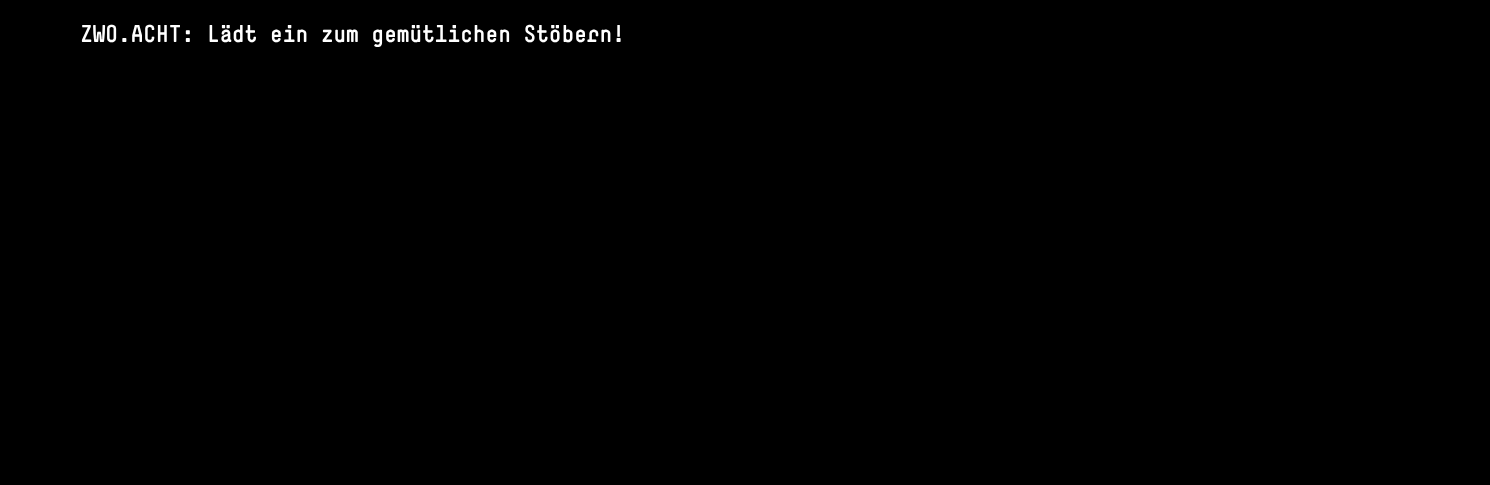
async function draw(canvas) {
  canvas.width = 1490
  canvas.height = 485
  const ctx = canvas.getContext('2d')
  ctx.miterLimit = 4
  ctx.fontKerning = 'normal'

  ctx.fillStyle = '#000'
  ctx.fillRect(0, 0, 1490, 485)
  ctx.font = 'bold 24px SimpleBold'
  ctx.fillStyle = '#fff'
  ctx.fillText('ZWO.ACHT: Lädt ein zum gemütlichen Stöbern!', 80, 42)
}

draw(document.querySelector('canvas'))
